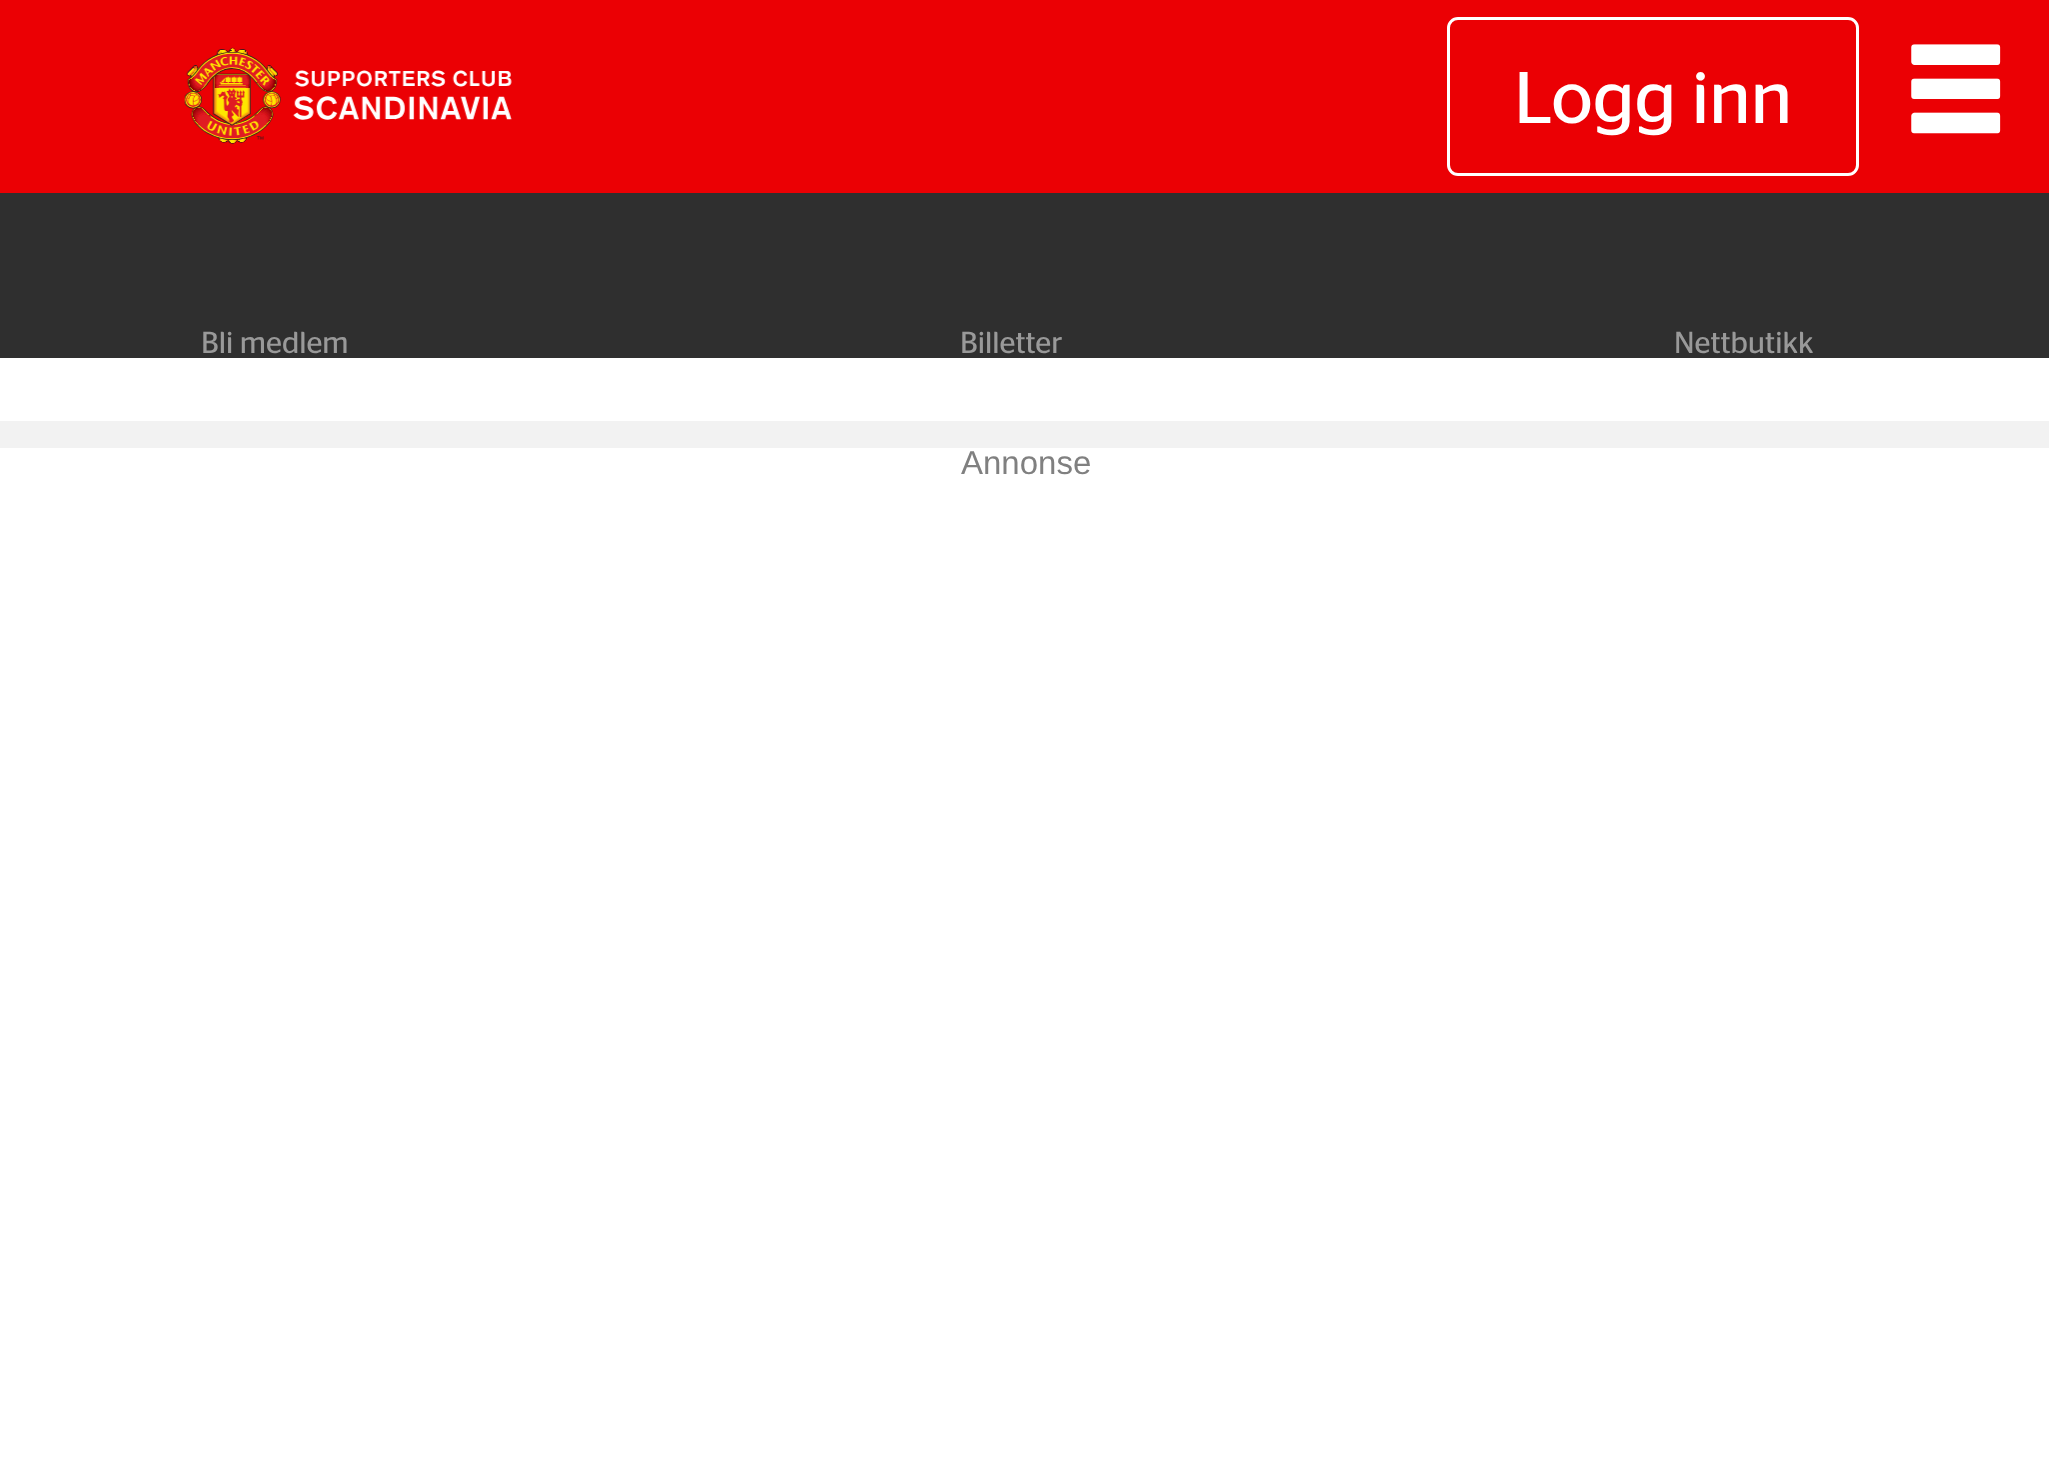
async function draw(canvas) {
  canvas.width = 2049
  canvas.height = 1465
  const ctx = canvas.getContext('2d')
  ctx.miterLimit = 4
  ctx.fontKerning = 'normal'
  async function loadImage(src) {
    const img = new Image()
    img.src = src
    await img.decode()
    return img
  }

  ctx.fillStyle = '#fff'
  ctx.fillRect(0, 0, 2049, 1465)
  ctx.fillStyle = '#eb0004'
  ctx.fillRect(0, 0, 2049, 193)
  ctx.drawImage(await loadImage('image0.png'), 184, 47, 328, 97)
  ctx.beginPath()
  ctx.roundRect(1448.5, 18.5, 409, 156, 9.5)
  ctx.strokeStyle = '#fff'
  ctx.lineWidth = 3
  ctx.stroke()
  ctx.font = '73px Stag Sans'
  ctx.fillStyle = '#fff'
  ctx.fillText('Logg inn', 1514, 123)
  ctx.drawImage(await loadImage('image1.png'), 1911, 44, 90, 90)
  ctx.fillStyle = '#2f2f2f'
  ctx.fillRect(0, 193, 2049, 165)
  ctx.font = '30.25px Stag Sans'
  ctx.fillStyle = '#999'
  ctx.fillText('Bli medlem', 201, 353)
  ctx.fillText('Billetter', 960, 353)
  ctx.fillText('Nettbutikk', 1674, 353)
  ctx.fillStyle = '#f2f2f2'
  ctx.fillRect(0, 421, 2049, 27)
  ctx.font = '33px Liberation Sans'
  ctx.fillStyle = '#808080'
  ctx.fillText('Annonse', 961, 474)
}

draw(document.querySelector('canvas'))
